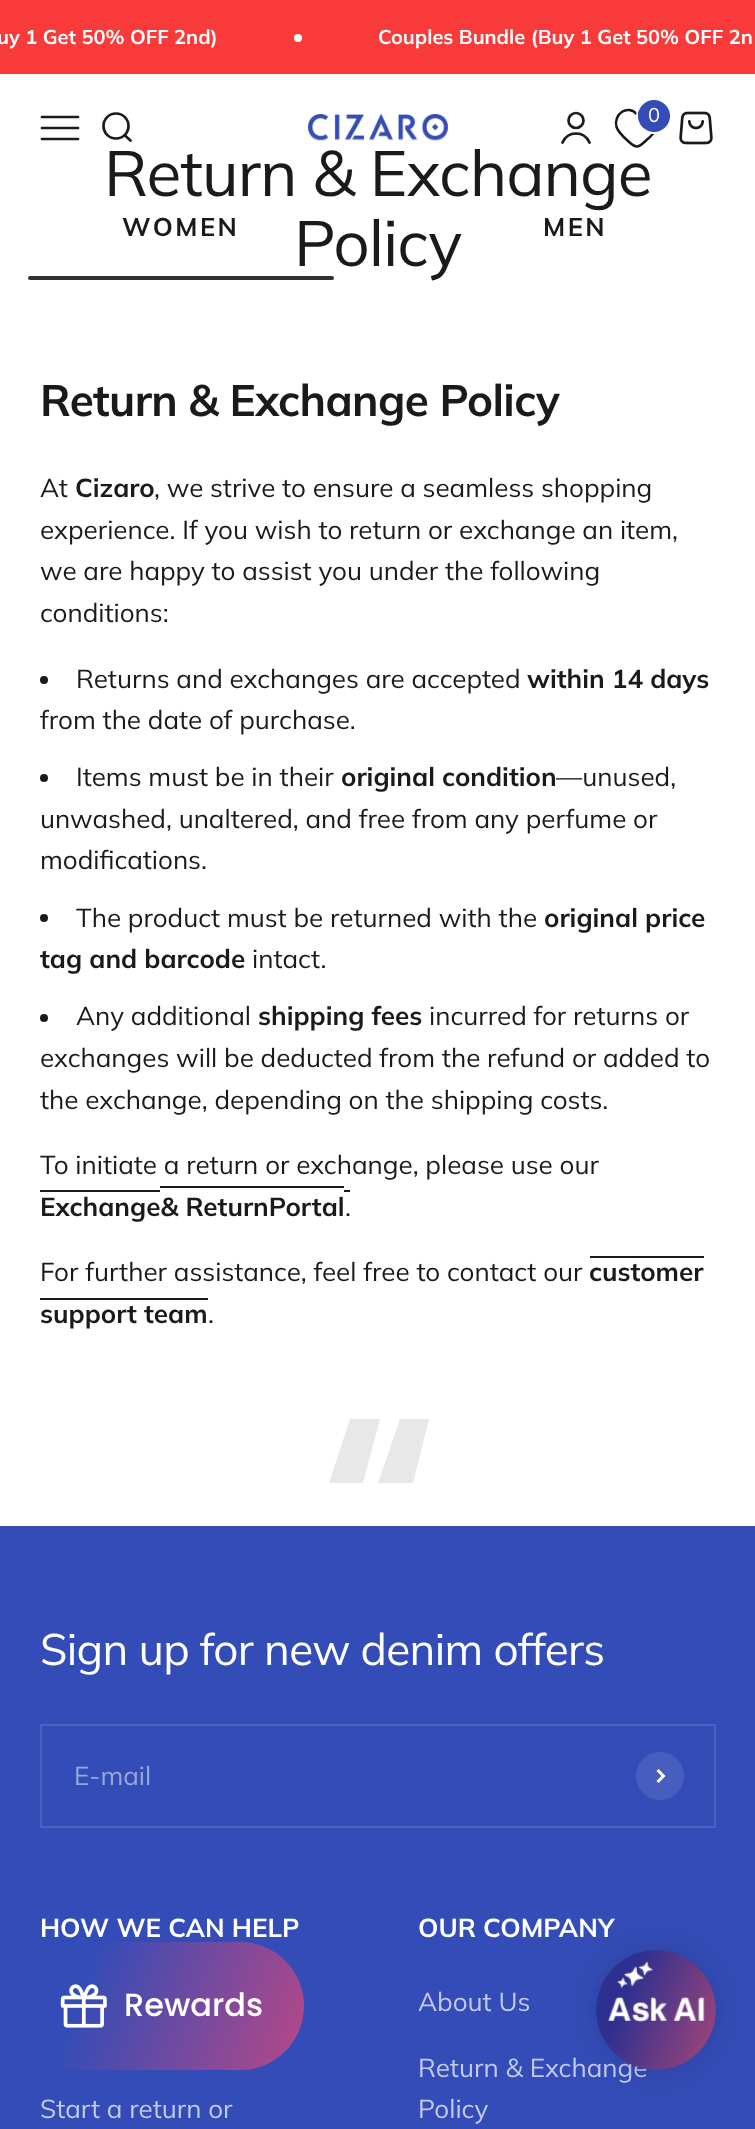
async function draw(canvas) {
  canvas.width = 755
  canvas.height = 2129
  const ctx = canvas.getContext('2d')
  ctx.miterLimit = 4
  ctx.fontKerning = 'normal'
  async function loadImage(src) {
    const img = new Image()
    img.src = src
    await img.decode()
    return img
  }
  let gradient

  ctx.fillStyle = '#fff'
  ctx.fillRect(0, 0, 755, 2129)
  ctx.fillStyle = '#f83a3a'
  ctx.fillRect(0, 0, 755, 74)
  ctx.font = 'bold 20px Muli'
  ctx.fillStyle = '#fff'
  ctx.fillText('uy 1 Get 50% OFF 2nd)', -3, 44)
  ctx.beginPath()
  ctx.arc(298, 38, 4, 0, 2 * Math.PI)
  ctx.fill()
  ctx.fillText('Couples Bundle (Buy 1 Get 50% OFF 2n', 378, 44)
  ctx.beginPath()
  ctx.moveTo(42, 117)
  ctx.lineTo(78, 117)
  ctx.moveTo(42, 128)
  ctx.lineTo(78, 128)
  ctx.moveTo(42, 139)
  ctx.lineTo(78, 139)
  ctx.strokeStyle = '#1a1a1a'
  ctx.lineWidth = 2.7
  ctx.lineCap = 'round'
  ctx.stroke()
  ctx.beginPath()
  ctx.arc(116, 126, 12.5, 0, 2 * Math.PI)
  ctx.stroke()
  ctx.beginPath()
  ctx.moveTo(125, 135.5)
  ctx.lineTo(130.5, 140.5)
  ctx.lineJoin = 'round'
  ctx.stroke()
  ctx.drawImage(await loadImage('image0.png'), 308, 114, 140, 27)
  ctx.beginPath()
  ctx.arc(576, 120.5, 7.5, 0, 2 * Math.PI)
  ctx.stroke()
  ctx.beginPath()
  ctx.moveTo(562.5, 142.5)
  ctx.bezierCurveTo(568, 130.5, 584, 130.5, 589.5, 142.5)
  ctx.lineJoin = 'miter'
  ctx.stroke()
  ctx.beginPath()
  ctx.moveTo(637, 146.5)
  ctx.bezierCurveTo(634, 146.5, 629.5, 142.5, 627.5, 140.5)
  ctx.bezierCurveTo(623.5, 137, 618.5, 132.5, 616.5, 127)
  ctx.bezierCurveTo(613, 114, 628, 103.5, 637, 114.5)
  ctx.bezierCurveTo(645, 104, 660.5, 113, 657, 126)
  ctx.bezierCurveTo(655.5, 132, 651, 136.5, 646, 140.5)
  ctx.bezierCurveTo(645, 141.5, 639.5, 146.5, 637, 146.5)
  ctx.closePath()
  ctx.lineWidth = 2.5
  ctx.lineCap = 'butt'
  ctx.stroke()
  ctx.beginPath()
  ctx.arc(654, 116, 17, 0, 2 * Math.PI)
  ctx.strokeStyle = '#fff'
  ctx.lineWidth = 2
  ctx.stroke()
  ctx.fillStyle = '#344cb7'
  ctx.beginPath()
  ctx.arc(654, 116, 16, 0, 2 * Math.PI)
  ctx.fill()
  ctx.font = '20px Muli'
  ctx.fillStyle = '#fff'
  ctx.fillText('0', 648, 122)
  ctx.drawImage(await loadImage('image1.png'), 679, 111, 34, 34)
  ctx.letterSpacing = '2.5px'
  ctx.font = 'bold 25.5px Muli'
  ctx.fillStyle = '#1a1a1a'
  ctx.fillText('WOMEN', 122, 236)
  ctx.letterSpacing = '-1px'
  ctx.font = '64px Muli'
  ctx.fillText('Policy', 294, 266)
  ctx.fillStyle = '#313131'
  ctx.beginPath()
  ctx.roundRect(28, 276, 306, 4, 2)
  ctx.fill()
  ctx.letterSpacing = '2.5px'
  ctx.font = 'bold 25.5px Muli'
  ctx.fillStyle = '#1a1a1a'
  ctx.fillText('MEN', 543, 236)
  ctx.letterSpacing = '-1px'
  ctx.font = '64px Muli'
  ctx.fillText('Return & Exchange', 104, 196)
  ctx.letterSpacing = '-0.65px'
  ctx.font = 'bold 44px Muli'
  ctx.fillText('Return & Exchange Policy', 40, 416)
  ctx.letterSpacing = '0px'
  ctx.font = '26px Muli'
  ctx.fillText('At', 40, 497)
  ctx.font = 'bold 26px Muli'
  ctx.fillText('Cizaro', 75, 497)
  ctx.font = '26px Muli'
  ctx.fillText(', we strive to ensure a seamless shopping', 154, 497)
  ctx.fillText('experience. If you wish to return or exchange an item,', 40, 539)
  ctx.fillText('we are happy to assist you under the following', 40, 580)
  ctx.fillText('conditions:', 40, 622)
  ctx.beginPath()
  ctx.arc(44, 680, 4, 0, 2 * Math.PI)
  ctx.fill()
  ctx.fillText('Returns and exchanges are accepted', 76, 688)
  ctx.font = 'bold 26px Muli'
  ctx.fillText('within 14 days', 527, 688)
  ctx.font = '26px Muli'
  ctx.fillText('from the date of purchase.', 40, 729)
  ctx.beginPath()
  ctx.arc(44, 778, 4, 0, 2 * Math.PI)
  ctx.fill()
  ctx.fillText('Items must be in their', 76, 786)
  ctx.font = 'bold 26px Muli'
  ctx.fillText('original condition', 341, 786)
  ctx.font = '26px Muli'
  ctx.fillText('—unused,', 556, 786)
  ctx.fillText('unwashed, unaltered, and free from any perfume or', 40, 828)
  ctx.fillText('modifications.', 40, 869)
  ctx.beginPath()
  ctx.arc(44, 918, 4, 0, 2 * Math.PI)
  ctx.fill()
  ctx.fillText('The product must be returned with the', 76, 927)
  ctx.font = 'bold 26px Muli'
  ctx.fillText('original price', 544, 927)
  ctx.fillText('tag and barcode', 40, 968)
  ctx.font = '26px Muli'
  ctx.fillText('intact.', 252, 968)
  ctx.beginPath()
  ctx.arc(44, 1018, 4, 0, 2 * Math.PI)
  ctx.fill()
  ctx.fillText('Any additional', 76, 1025)
  ctx.font = 'bold 26px Muli'
  ctx.fillText('shipping fees', 258, 1025)
  ctx.font = '26px Muli'
  ctx.fillText('incurred for returns or', 429, 1025)
  ctx.fillText('exchanges will be deducted from the refund or added to', 40, 1067)
  ctx.fillText('the exchange, depending on the shipping costs.', 40, 1109)
  ctx.fillText('To initiate a return or exchange, please use our', 40, 1174)
  ctx.font = 'bold 26px Muli'
  ctx.fillText('Exchange& ReturnPortal', 40, 1216)
  ctx.fillRect(40, 1190, 120, 2)
  ctx.fillRect(160, 1186, 184, 2)
  ctx.fillRect(344, 1190, 6, 2)
  ctx.font = '26px Muli'
  ctx.fillText('.', 345, 1216)
  ctx.fillText('For further assistance, feel free to contact our', 40, 1281)
  ctx.font = 'bold 26px Muli'
  ctx.fillText('customer', 589, 1281)
  ctx.fillRect(590, 1256, 114, 2)
  ctx.fillText('support team', 40, 1323)
  ctx.fillRect(40, 1298, 168, 2)
  ctx.font = '26px Muli'
  ctx.fillText('.', 208, 1323)
  ctx.fillStyle = '#e8e8e8'
  ctx.beginPath()
  ctx.moveTo(413, 1483)
  ctx.lineTo(378, 1483)
  ctx.lineTo(400, 1419)
  ctx.lineTo(429, 1419)
  ctx.closePath()
  ctx.moveTo(363, 1483)
  ctx.lineTo(329, 1483)
  ctx.lineTo(350, 1419)
  ctx.lineTo(380, 1419)
  ctx.closePath()
  ctx.fill()
  ctx.fillStyle = '#344cb7'
  ctx.fillRect(0, 1526, 755, 603)
  ctx.letterSpacing = '-0.65px'
  ctx.font = '44px Muli'
  ctx.fillStyle = '#fff'
  ctx.fillText('Sign up for new denim offers', 40, 1665)
  ctx.strokeStyle = '#4c61c0'
  ctx.strokeRect(41, 1725, 674, 102)
  ctx.letterSpacing = '0px'
  ctx.font = '26px Muli'
  ctx.fillStyle = '#9aa6db'
  ctx.fillText('E-mail', 74, 1785)
  ctx.fillStyle = '#485ebe'
  ctx.beginPath()
  ctx.arc(660, 1776, 24, 0, 2 * Math.PI)
  ctx.fill()
  ctx.beginPath()
  ctx.moveTo(657.5, 1782)
  ctx.lineTo(663.5, 1776)
  ctx.lineTo(657.5, 1770)
  ctx.strokeStyle = '#fff'
  ctx.lineWidth = 3
  ctx.stroke()
  ctx.font = 'bold 26px Muli'
  ctx.fillStyle = '#fff'
  ctx.fillText('HOW WE CAN HELP', 40, 1937)
  ctx.font = '26px Muli'
  ctx.fillStyle = '#c2c9e9'
  ctx.fillText('Start a return or', 40, 2118)
  ctx.font = 'bold 26px Muli'
  ctx.fillStyle = '#fff'
  ctx.fillText('OUR COMPANY', 418, 1937)
  ctx.font = '26px Muli'
  ctx.fillStyle = '#c2c9e9'
  ctx.fillText('About Us', 418, 2011)
  ctx.fillText('Return & Exchange', 418, 2077)
  ctx.fillText('Policy', 418, 2118)
  gradient = ctx.createLinearGradient(16, 1954, 426, 2100)
  gradient.addColorStop(0.17, '#344cb7')
  gradient.addColorStop(1, '#fc466b')
  ctx.fillStyle = gradient
  ctx.beginPath()
  ctx.roundRect(20, 1942, 284, 128, 64)
  ctx.fill()
  ctx.drawImage(await loadImage('image2.png'), 60, 1984, 47, 44)
  ctx.font = '500 32px Poppins'
  ctx.fillStyle = '#fff'
  ctx.fillText('Rewards', 124, 2016)
  ctx.fillStyle = '#00122e29'
  ctx.filter = 'blur(16px)'
  ctx.beginPath()
  ctx.roundRect(596, 1950, 120, 120, 60)
  ctx.fill()
  ctx.filter = 'none'
  ctx.drawImage(await loadImage('image3.png'), 596, 1950, 120, 120)
}

draw(document.querySelector('canvas'))
